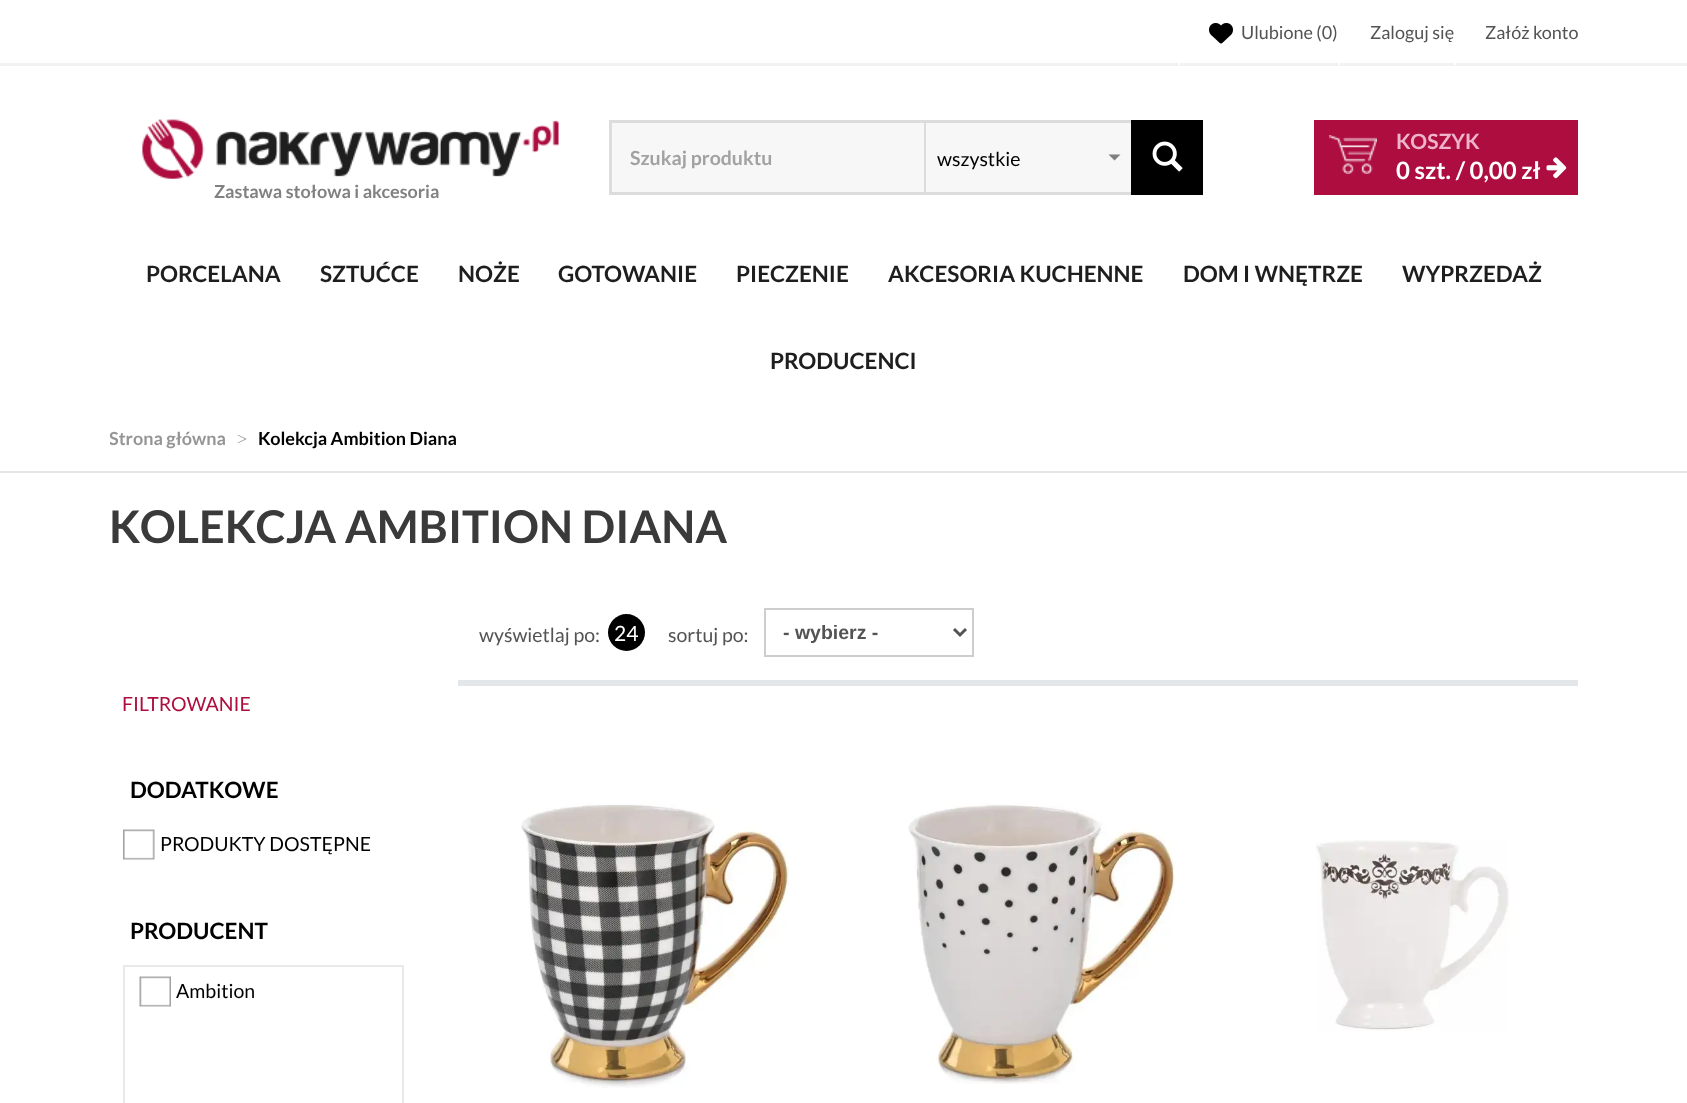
async function draw(canvas) {
  canvas.width = 1687
  canvas.height = 1103
  const ctx = canvas.getContext('2d')
  ctx.miterLimit = 4
  ctx.fontKerning = 'normal'
  async function loadImage(src) {
    const img = new Image()
    img.src = src
    await img.decode()
    return img
  }

  ctx.fillStyle = '#fff'
  ctx.fillRect(0, 0, 1687, 1103)
  ctx.fillStyle = '#f2f2f2'
  ctx.fillRect(0, 63, 1687, 3)
  ctx.fillStyle = '#fff'
  ctx.fillRect(1178, 63, 2, 2)
  ctx.drawImage(await loadImage('image0.png'), 1209, 23, 24, 21)
  ctx.font = '18px Lato'
  ctx.fillStyle = '#535353'
  ctx.fillText('Ulubione (0)', 1241, 39)
  ctx.fillStyle = '#fff'
  ctx.fillRect(1338, 63, 2, 2)
  ctx.fillStyle = '#535353'
  ctx.fillText('Zaloguj się', 1370, 39)
  ctx.fillStyle = '#fff'
  ctx.fillRect(1454, 63, 2, 2)
  ctx.fillStyle = '#535353'
  ctx.fillText('Załóż konto', 1485, 39)
  ctx.fillStyle = '#f7f7f7'
  ctx.fillRect(612, 123, 519, 69)
  ctx.strokeStyle = '#dcdcdc'
  ctx.lineWidth = 3
  ctx.strokeRect(610.5, 121.5, 591, 72)
  ctx.font = 'bold 19.5px Lato'
  ctx.fillStyle = '#a3a2a2'
  ctx.fillText('Szukaj produktu', 630, 165)
  ctx.fillStyle = '#dcdcdc'
  ctx.fillRect(924, 123, 2, 69)
  ctx.font = '19.5px Lato'
  ctx.fillStyle = '#000'
  ctx.fillText('wszystkie', 937, 166)
  ctx.fillStyle = '#807f7f'
  ctx.beginPath()
  ctx.moveTo(1108.5, 154.5)
  ctx.lineTo(1120.5, 154.5)
  ctx.lineTo(1114.5, 160.5)
  ctx.closePath()
  ctx.fill()
  ctx.fillStyle = '#000'
  ctx.fillRect(1131, 120, 72, 75)
  ctx.drawImage(await loadImage('image1.png'), 1152, 141, 31, 31)
  ctx.fillStyle = '#ad0e3f'
  ctx.fillRect(1314, 120, 264, 75)
  ctx.drawImage(await loadImage('image2.png'), 1329, 135, 48, 39)
  ctx.font = 'bold 21px Lato'
  ctx.fillStyle = '#efb4cb'
  ctx.fillText('KOSZYK', 1396, 149)
  ctx.font = 'bold 24px Lato'
  ctx.fillStyle = '#fff'
  ctx.fillText('0 szt. / 0,00 zł', 1396, 179)
  ctx.drawImage(await loadImage('image3.png'), 1546, 157, 21, 22)
  ctx.drawImage(await loadImage('image4.png'), 142, 119, 417, 60)
  ctx.font = 'bold 18px Lato'
  ctx.fillStyle = '#818181'
  ctx.fillText('Zastawa stołowa i akcesoria', 214, 198)
  ctx.font = 'bold 22.5px Lato'
  ctx.fillStyle = '#1d1e1d'
  ctx.fillText('PORCELANA', 146, 282)
  ctx.fillText('SZTUĆCE', 320, 282)
  ctx.fillText('NOŻE', 458, 282)
  ctx.fillText('GOTOWANIE', 558, 282)
  ctx.fillText('PIECZENIE', 736, 282)
  ctx.fillText('AKCESORIA KUCHENNE', 888, 282)
  ctx.fillText('DOM I WNĘTRZE', 1183, 282)
  ctx.fillText('WYPRZEDAŻ', 1402, 282)
  ctx.fillText('PRODUCENCI', 770, 369)
  ctx.fillStyle = '#e5e5e5'
  ctx.fillRect(0, 471, 1687, 2)
  ctx.save()
  ctx.beginPath()
  ctx.rect(110, 420, 1470, 35)
  ctx.clip()
  ctx.font = 'bold 18px Lato'
  ctx.fillStyle = '#959595'
  ctx.fillText('Strona główna', 109, 445)
  ctx.restore()
  ctx.font = '18px Liberation Serif'
  ctx.fillStyle = '#959595'
  ctx.fillText('>', 237, 445)
  ctx.font = 'bold 18px Lato'
  ctx.fillStyle = '#000'
  ctx.fillText('Kolekcja Ambition Diana', 258, 445)
  ctx.font = 'bold 45px Lato'
  ctx.fillStyle = '#3a3a3a'
  ctx.fillText('KOLEKCJA AMBITION DIANA', 109, 543)
  ctx.font = '19.5px Lato'
  ctx.fillStyle = '#535353'
  ctx.fillText('wyświetlaj po:', 479, 642)
  ctx.fillStyle = '#000'
  ctx.beginPath()
  ctx.arc(626.5, 632.5, 18.5, 0, 2 * Math.PI)
  ctx.fill()
  ctx.font = '21px Lato'
  ctx.fillStyle = '#fff'
  ctx.fillText('24', 614, 641)
  ctx.font = '19.5px Lato'
  ctx.fillStyle = '#535353'
  ctx.fillText('sortuj po:', 668, 642)
  ctx.strokeStyle = '#cdcdcd'
  ctx.lineWidth = 2
  ctx.strokeRect(765, 609, 208, 47)
  ctx.beginPath()
  ctx.moveTo(954, 629)
  ctx.lineTo(960, 635)
  ctx.lineTo(966, 629)
  ctx.strokeStyle = '#535353'
  ctx.lineWidth = 3
  ctx.stroke()
  ctx.font = 'bold 19.5px Liberation Sans'
  ctx.fillText('- wybierz -', 783, 639)
  ctx.fillStyle = '#e4e7e9'
  ctx.fillRect(458, 680, 1120, 6)
  ctx.drawImage(await loadImage('image5.png'), 521, 803, 268, 285)
  ctx.drawImage(await loadImage('image6.png'), 908, 803, 267, 281)
  ctx.drawImage(await loadImage('image7.png'), 1316, 840, 193, 191)
  ctx.font = '19.5px Lato'
  ctx.fillStyle = '#ad0e3f'
  ctx.fillText('FILTROWANIE', 122, 711)
  ctx.font = 'bold 22.5px Lato'
  ctx.fillStyle = '#000'
  ctx.fillText('DODATKOWE', 130, 798)
  ctx.drawImage(await loadImage('image8.png'), 123, 829, 32, 31)
  ctx.font = '19.5px Lato'
  ctx.fillText('PRODUKTY DOSTĘPNE', 160, 851)
  ctx.font = 'bold 22.5px Lato'
  ctx.fillText('PRODUCENT', 130, 939)
  ctx.strokeStyle = '#eae9e9'
  ctx.lineWidth = 2
  ctx.strokeRect(124, 966, 279, 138)
  ctx.drawImage(await loadImage('image9.png'), 139, 976, 32, 31)
  ctx.font = '19.5px Lato'
  ctx.fillText('Ambition', 176, 998)
}

draw(document.querySelector('canvas'))
